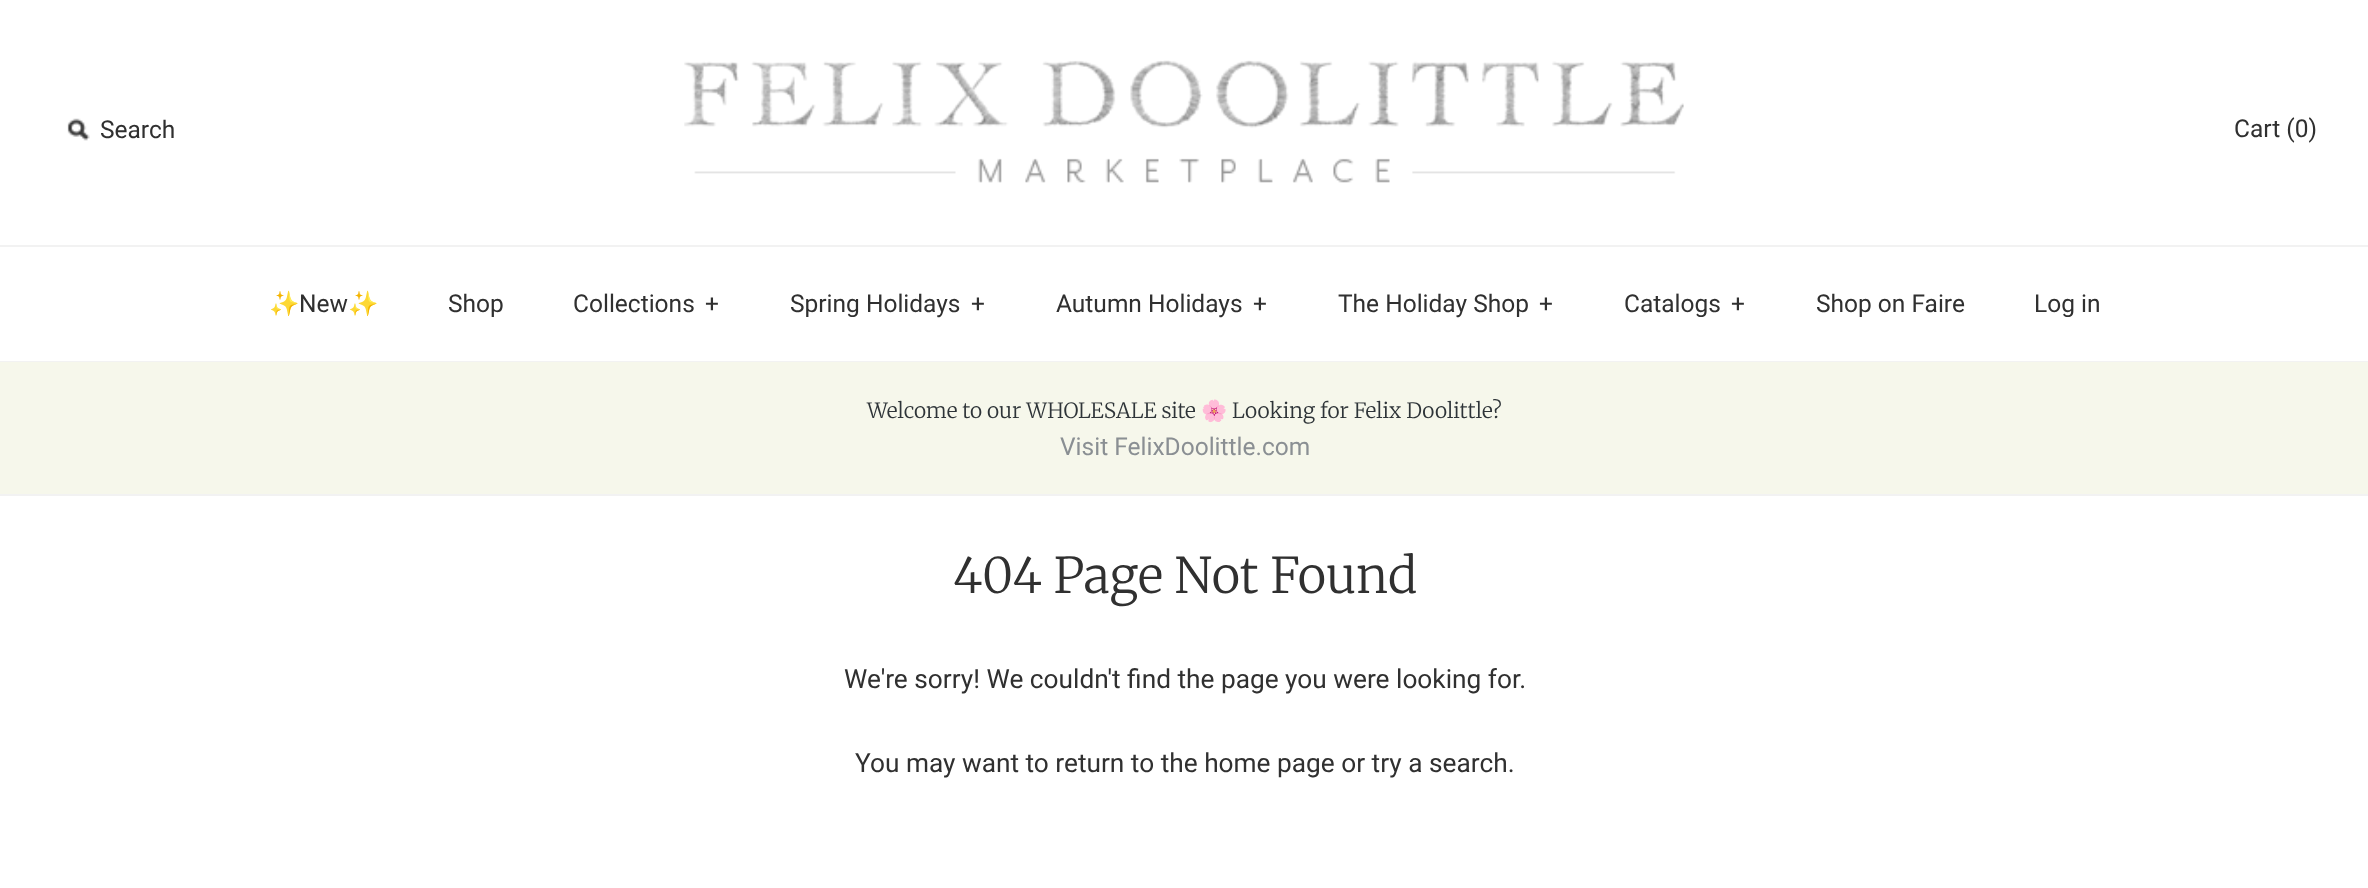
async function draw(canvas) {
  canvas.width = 2368
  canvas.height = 888
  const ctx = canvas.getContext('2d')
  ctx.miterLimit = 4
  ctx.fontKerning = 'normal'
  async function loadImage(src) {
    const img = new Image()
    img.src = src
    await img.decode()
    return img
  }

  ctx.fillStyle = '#f2f2f2'
  ctx.fillRect(0, 0, 2368, 888)
  ctx.fillStyle = '#fff'
  ctx.fillRect(0, 0, 2368, 245)
  ctx.drawImage(await loadImage('image0.png'), 684, 60, 1000, 123)
  ctx.drawImage(await loadImage('image1.png'), 67, 118, 23, 23)
  ctx.font = '24.5px Roboto'
  ctx.fillStyle = '#303030'
  ctx.fillText('Search', 100, 138)
  ctx.fillText('Cart (0)', 2234, 137)
  ctx.fillStyle = '#fff'
  ctx.fillRect(0, 247, 2368, 114)
  ctx.font = '24.5px Noto Color Emoji'
  ctx.fillStyle = '#303030'
  ctx.fillText('✨', 269, 312)
  ctx.font = '24.5px Roboto'
  ctx.fillText('New', 299, 312)
  ctx.font = '24.5px Noto Color Emoji'
  ctx.fillText('✨', 348, 312)
  ctx.font = '24.5px Roboto'
  ctx.fillText('Shop', 448, 312)
  ctx.fillText('Collections', 573, 312)
  ctx.fillText('+', 705, 312)
  ctx.fillText('Spring Holidays', 790, 312)
  ctx.fillText('+', 971, 312)
  ctx.fillText('Autumn Holidays', 1056, 312)
  ctx.fillText('+', 1253, 312)
  ctx.fillText('The Holiday Shop', 1338, 312)
  ctx.fillText('+', 1539, 312)
  ctx.fillText('Catalogs', 1624, 312)
  ctx.fillText('+', 1731, 312)
  ctx.fillText('Shop on Faire', 1816, 312)
  ctx.fillText('Log in', 2034, 312)
  ctx.fillStyle = '#fff'
  ctx.fillRect(0, 496, 2368, 392)
  ctx.fillStyle = '#f6f7eb'
  ctx.fillRect(0, 362, 2368, 132)
  ctx.font = '300 21px Merriweather'
  ctx.fillStyle = '#2e3438'
  ctx.fillText('Welcome to our WHOLESALE site', 867, 418)
  ctx.font = '21px Noto Color Emoji'
  ctx.fillText('🌸', 1201, 418)
  ctx.font = '300 21px Merriweather'
  ctx.fillText('Looking for Felix Doolittle?', 1232, 418)
  ctx.font = '24.5px Roboto'
  ctx.fillStyle = '#8a8f93'
  ctx.fillText('Visit FelixDoolittle.com', 1060, 455)
  ctx.font = '300 49px Merriweather'
  ctx.fillStyle = '#303030'
  ctx.fillText('404 Page Not Found', 953, 593)
  ctx.font = '26.25px Roboto'
  ctx.fillText('We\'re sorry! We couldn\'t find the page you were looking for.', 844, 688)
  ctx.fillText('You may want to return to the home page or try a search.', 855, 772)
}

draw(document.querySelector('canvas'))
